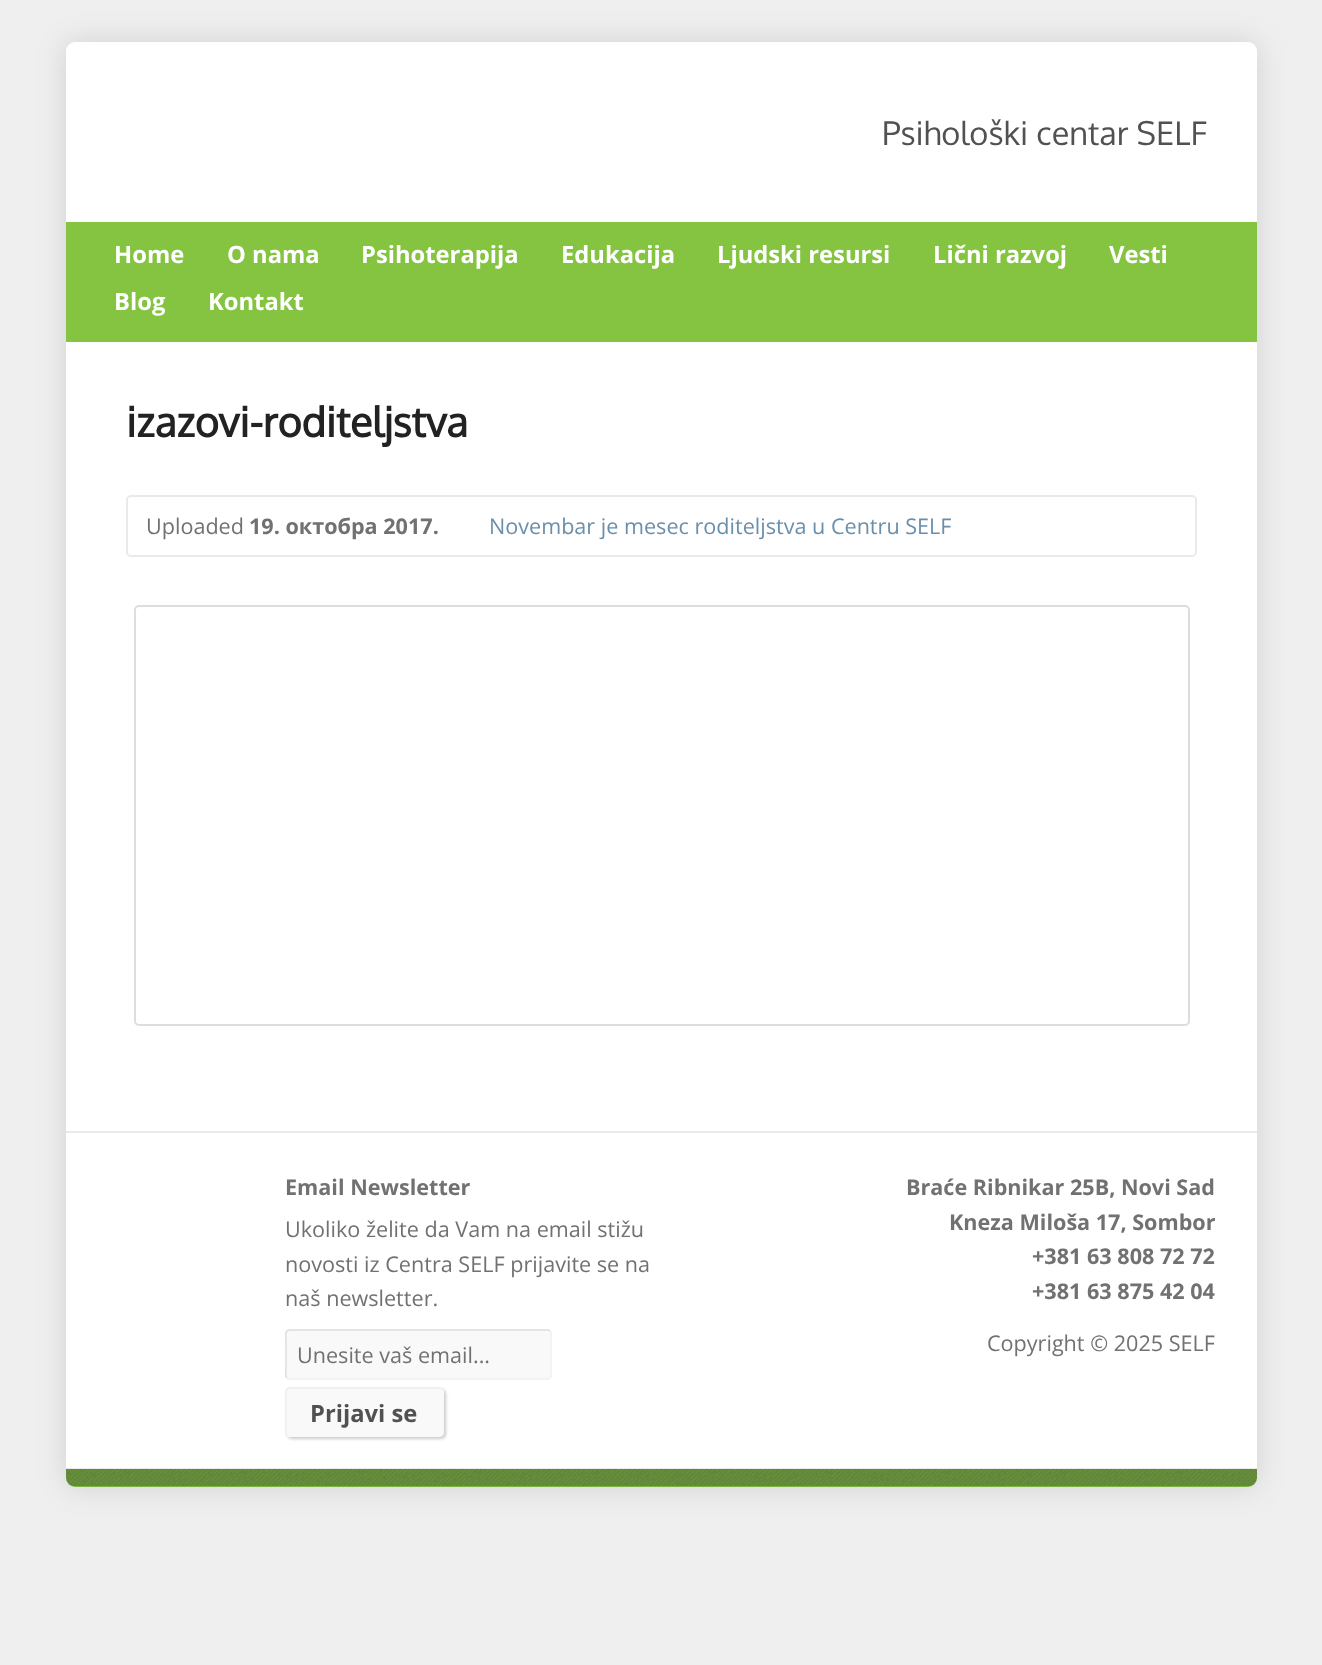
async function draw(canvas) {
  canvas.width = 1322
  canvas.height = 1665
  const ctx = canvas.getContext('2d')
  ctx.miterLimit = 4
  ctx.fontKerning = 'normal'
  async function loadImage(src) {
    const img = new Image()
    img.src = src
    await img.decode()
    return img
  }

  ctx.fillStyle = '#efefef'
  ctx.fillRect(0, 0, 1322, 1665)
  ctx.fillStyle = '#0000001f'
  ctx.filter = 'blur(15px)'
  ctx.beginPath()
  ctx.roundRect(66, 42, 1191, 1445, 9)
  ctx.fill()
  ctx.filter = 'none'
  ctx.fillStyle = '#fff'
  ctx.beginPath()
  ctx.roundRect(66, 42, 1191, 1445, 9)
  ctx.fill()
  ctx.font = '32.5px Oxygen'
  ctx.fillStyle = '#515151'
  ctx.fillText('Psihološki centar SELF', 882, 145)
  ctx.fillStyle = '#84c441'
  ctx.fillRect(66, 222, 1191, 120)
  ctx.font = 'bold 23.75px Open Sans'
  ctx.fillStyle = '#fff'
  ctx.fillText('Home', 114, 263)
  ctx.fillText('O nama', 227, 263)
  ctx.fillText('Psihoterapija', 361, 263)
  ctx.fillText('Edukacija', 561, 263)
  ctx.fillText('Ljudski resursi', 717, 263)
  ctx.fillText('Lični razvoj', 933, 263)
  ctx.fillText('Vesti', 1109, 263)
  ctx.fillText('Blog', 114, 310)
  ctx.fillText('Kontakt', 208, 310)
  ctx.font = 'bold 41px Oxygen'
  ctx.fillStyle = '#222'
  ctx.fillText('izazovi-roditeljstva', 126, 437)
  ctx.beginPath()
  ctx.roundRect(127, 496, 1069, 60, 4)
  ctx.strokeStyle = '#eaeaea'
  ctx.lineWidth = 2
  ctx.stroke()
  ctx.font = '21.6px Open Sans'
  ctx.fillStyle = '#717171'
  ctx.fillText('Uploaded', 146, 534)
  ctx.font = 'bold 21.6px Open Sans'
  ctx.fillText('19. октобра 2017.', 249, 534)
  ctx.font = '21.6px Open Sans'
  ctx.fillStyle = '#6a8fab'
  ctx.fillText('Novembar je mesec roditeljstva u Centru SELF', 489, 534)
  ctx.beginPath()
  ctx.roundRect(135, 606, 1054, 419, 4)
  ctx.strokeStyle = '#ddd'
  ctx.stroke()
  ctx.fillStyle = '#eaeaea'
  ctx.fillRect(66, 1131, 1191, 2)
  ctx.font = 'bold 21.6px Open Sans'
  ctx.fillStyle = '#717171'
  ctx.fillText('Email Newsletter', 285, 1195)
  ctx.font = '21.6px Open Sans'
  ctx.fillText('Ukoliko želite da Vam na email stižu', 285, 1237)
  ctx.fillText('novosti iz Centra SELF prijavite se na', 285, 1272)
  ctx.fillText('naš newsletter.', 285, 1306)
  ctx.fillStyle = '#f9f9f9'
  ctx.beginPath()
  ctx.roundRect(285, 1329, 267, 51, 5)
  ctx.fill()
  ctx.beginPath()
  ctx.moveTo(550, 1331)
  ctx.bezierCurveTo(552.5, 1333, 551, 1339, 551, 1340.5)
  ctx.lineTo(551, 1368.5)
  ctx.bezierCurveTo(551, 1371, 553, 1379, 547.5, 1379)
  ctx.lineTo(288.5, 1379)
  ctx.lineTo(287, 1378)
  ctx.strokeStyle = '#f1f1f1'
  ctx.lineWidth = 1.5
  ctx.stroke()
  ctx.beginPath()
  ctx.moveTo(287, 1378)
  ctx.bezierCurveTo(284.5, 1376, 286, 1370, 286, 1368.5)
  ctx.lineTo(286, 1340.5)
  ctx.bezierCurveTo(286, 1338, 284, 1330, 289.5, 1330)
  ctx.lineTo(548.5, 1330)
  ctx.lineTo(550, 1331)
  ctx.strokeStyle = '#ddd'
  ctx.stroke()
  ctx.fillStyle = '#717171'
  ctx.fillText('Unesite vaš email...', 297, 1363)
  ctx.fillStyle = '#00000033'
  ctx.filter = 'blur(1.5px)'
  ctx.beginPath()
  ctx.roundRect(287, 1389, 159, 50, 5)
  ctx.fill()
  ctx.filter = 'none'
  ctx.fillStyle = '#f9f9f9'
  ctx.beginPath()
  ctx.roundRect(285, 1388, 159, 49, 5)
  ctx.fill()
  ctx.beginPath()
  ctx.moveTo(442, 1389.5)
  ctx.bezierCurveTo(443, 1390, 443, 1391, 443, 1392)
  ctx.lineTo(443, 1432.5)
  ctx.bezierCurveTo(443, 1433.5, 443, 1434.5, 442, 1435)
  ctx.bezierCurveTo(441.5, 1436, 440.5, 1436, 439.5, 1436)
  ctx.lineTo(289.5, 1436)
  ctx.bezierCurveTo(288.5, 1436, 287.5, 1436, 287, 1435)
  ctx.strokeStyle = '#f9f9f9'
  ctx.stroke()
  ctx.beginPath()
  ctx.moveTo(287, 1435)
  ctx.bezierCurveTo(286, 1434.5, 286, 1433.5, 286, 1432.5)
  ctx.lineTo(286, 1392)
  ctx.bezierCurveTo(286, 1391, 286, 1390, 287, 1389.5)
  ctx.bezierCurveTo(287.5, 1388.5, 288.5, 1388, 289.5, 1388)
  ctx.lineTo(439.5, 1388)
  ctx.bezierCurveTo(440.5, 1388, 441.5, 1388.5, 442, 1389.5)
  ctx.strokeStyle = '#eee'
  ctx.stroke()
  ctx.font = 'bold 23.75px Open Sans'
  ctx.fillStyle = '#515151'
  ctx.fillText('Prijavi se', 310, 1422)
  ctx.font = 'bold 21.6px Open Sans'
  ctx.fillStyle = '#717171'
  ctx.fillText('Braće Ribnikar 25B, Novi Sad', 906, 1195)
  ctx.fillText('Kneza Miloša 17, Sombor', 949, 1230)
  ctx.fillText('+381 63 808 72 72', 1032, 1264)
  ctx.fillText('+381 63 875 42 04', 1032, 1299)
  ctx.font = '21.6px Open Sans'
  ctx.fillText('Copyright © 2025 SELF', 987, 1351)
  ctx.fillStyle = '#84c441'
  ctx.beginPath()
  ctx.roundRect(66, 1469, 1191, 18, [0, 0, 9, 9])
  ctx.fill()
  ctx.drawImage(await loadImage('image0.png'), 66, 1468, 1191, 19)
}

draw(document.querySelector('canvas'))
